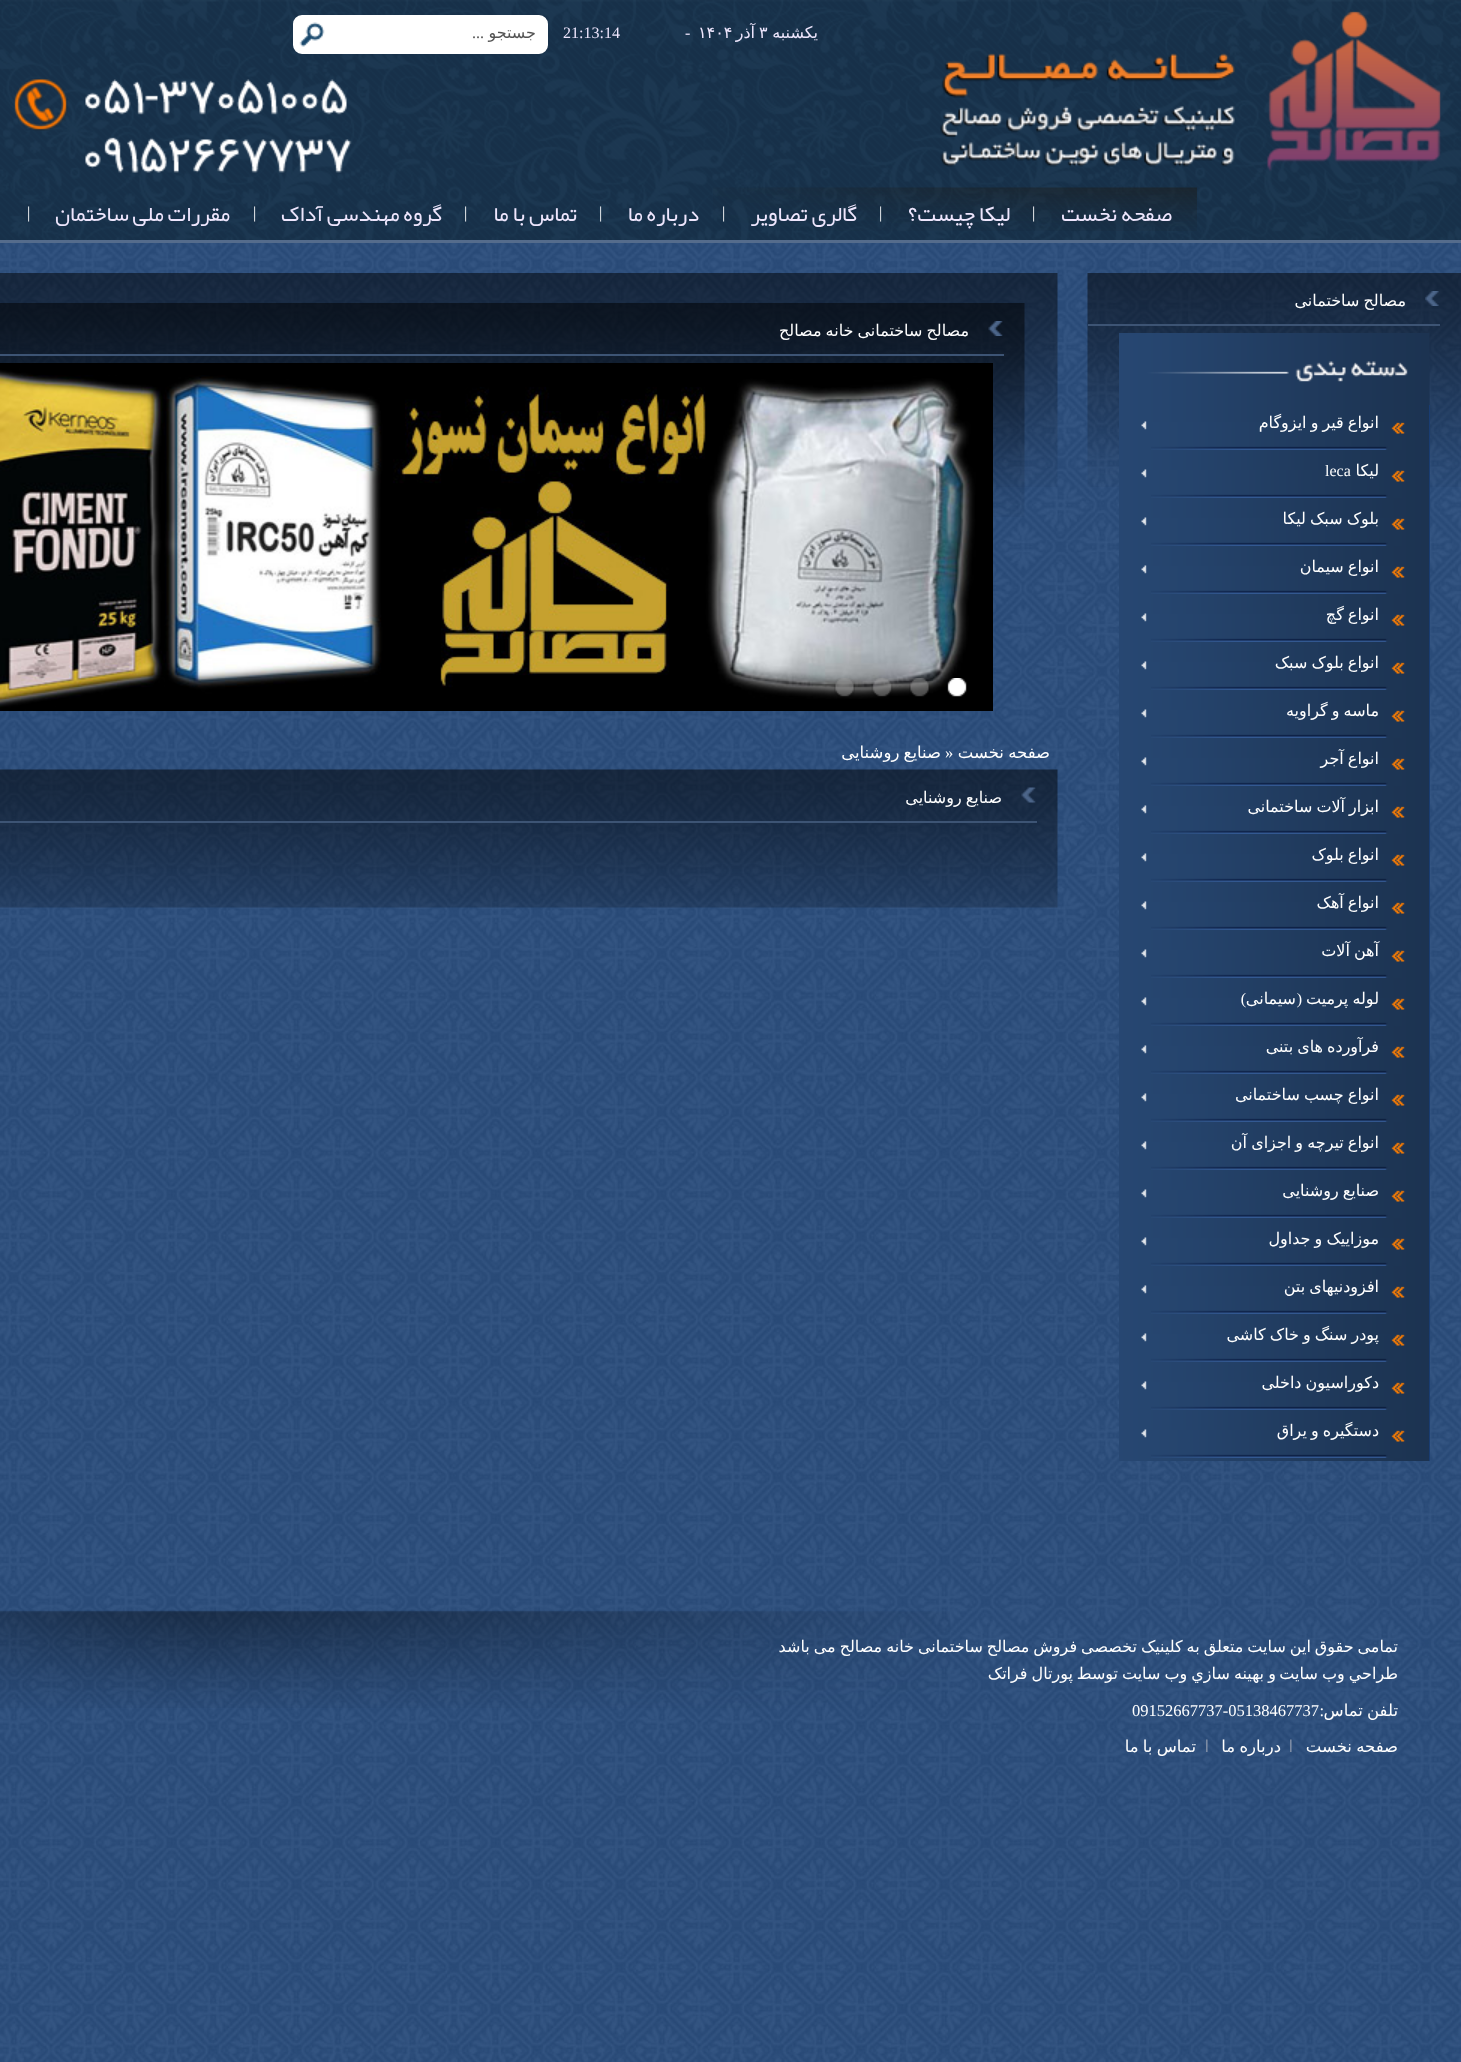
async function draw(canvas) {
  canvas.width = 1461
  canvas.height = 2062
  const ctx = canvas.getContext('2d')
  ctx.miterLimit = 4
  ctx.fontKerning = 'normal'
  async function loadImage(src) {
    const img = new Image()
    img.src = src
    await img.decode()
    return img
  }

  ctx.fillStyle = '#fff'
  ctx.fillRect(0, 0, 1461, 2062)
  ctx.drawImage(await loadImage('image0.png'), 0, 243, 1461, 1819)
  ctx.drawImage(await loadImage('image1.png'), 0, 0, 1461, 240)
  ctx.fillStyle = '#556c8c'
  ctx.fillRect(0, 240, 1461, 3)
  ctx.drawImage(await loadImage('image2.png'), 14, 11, 1427, 162)
  ctx.direction = 'rtl'
  ctx.font = '16px DejaVu Sans'
  ctx.fillStyle = '#eee6fd'
  ctx.fillText('يکشنبه', 818, 38)
  ctx.direction = 'ltr'
  ctx.fillText('۳', 759, 38)
  ctx.direction = 'rtl'
  ctx.fillText('آذر', 755, 38)
  ctx.direction = 'ltr'
  ctx.fillText('۱۴۰۴', 698, 38)
  ctx.font = '16px Liberation Serif'
  ctx.fillText('-', 685, 38)
  ctx.fillText('21:13:14', 563, 38)
  ctx.fillStyle = '#fff'
  ctx.beginPath()
  ctx.roundRect(294, 16, 253, 37, 8)
  ctx.fill()
  ctx.strokeStyle = '#fff'
  ctx.lineWidth = 2
  ctx.stroke()
  ctx.direction = 'rtl'
  ctx.font = '16px DejaVu Sans'
  ctx.fillStyle = '#535353'
  ctx.fillText('جستجو', 536, 38)
  ctx.font = '16px Liberation Serif'
  ctx.fillText('...', 484, 38)
  ctx.drawImage(await loadImage('image3.png'), 299, 22, 26, 25)
  ctx.drawImage(await loadImage('image4.png'), 713, 187, 484, 44)
  ctx.font = '22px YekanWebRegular'
  ctx.fillStyle = '#eee6fd'
  ctx.fillText('صفحه نخست', 1172, 221)
  ctx.direction = 'ltr'
  ctx.font = '16.5px Liberation Serif'
  ctx.fillStyle = '#fff'
  ctx.fillText('|', 1032, 218)
  ctx.direction = 'rtl'
  ctx.font = '22px YekanWebRegular'
  ctx.fillStyle = '#eee6fd'
  ctx.fillText('لیکا چیست؟', 1010, 221)
  ctx.direction = 'ltr'
  ctx.font = '16.5px Liberation Serif'
  ctx.fillStyle = '#fff'
  ctx.fillText('|', 879, 218)
  ctx.direction = 'rtl'
  ctx.font = '22px YekanWebRegular'
  ctx.fillStyle = '#eee6fd'
  ctx.fillText('گالری تصاویر', 857, 221)
  ctx.direction = 'ltr'
  ctx.font = '16.5px Liberation Serif'
  ctx.fillStyle = '#fff'
  ctx.fillText('|', 722, 218)
  ctx.direction = 'rtl'
  ctx.font = '22px YekanWebRegular'
  ctx.fillStyle = '#eee6fd'
  ctx.fillText('درباره ما', 699, 221)
  ctx.direction = 'ltr'
  ctx.font = '16.5px Liberation Serif'
  ctx.fillStyle = '#fff'
  ctx.fillText('|', 599, 218)
  ctx.direction = 'rtl'
  ctx.font = '22px YekanWebRegular'
  ctx.fillStyle = '#eee6fd'
  ctx.fillText('تماس با ما', 577, 221)
  ctx.direction = 'ltr'
  ctx.font = '16.5px Liberation Serif'
  ctx.fillStyle = '#fff'
  ctx.fillText('|', 464, 218)
  ctx.direction = 'rtl'
  ctx.font = '22px YekanWebRegular'
  ctx.fillStyle = '#eee6fd'
  ctx.fillText('گروه مهندسی آداک', 442, 221)
  ctx.direction = 'ltr'
  ctx.font = '16.5px Liberation Serif'
  ctx.fillStyle = '#fff'
  ctx.fillText('|', 253, 218)
  ctx.direction = 'rtl'
  ctx.font = '22px YekanWebRegular'
  ctx.fillStyle = '#eee6fd'
  ctx.fillText('مقررات ملی ساختمان', 230, 221)
  ctx.direction = 'ltr'
  ctx.font = '16.5px Liberation Serif'
  ctx.fillStyle = '#fff'
  ctx.fillText('|', 27, 218)
  ctx.drawImage(await loadImage('image5.png'), 1087, 273, 374, 214)
  ctx.drawImage(await loadImage('image6.png'), 1425, 291, 14, 15)
  ctx.fillStyle = '#3d5474'
  ctx.fillRect(1088, 324, 352, 2)
  ctx.wordSpacing = '-1px'
  ctx.direction = 'rtl'
  ctx.font = '16px DejaVu Sans'
  ctx.fillStyle = '#fff'
  ctx.fillText('مصالح ساختمانی', 1406, 306)
  ctx.drawImage(await loadImage('image7.png'), 1119, 333, 311, 72)
  ctx.fillStyle = '#174793'
  ctx.fillRect(1429, 405, 1, 1056)
  ctx.drawImage(await loadImage('image8.png'), 1119, 405, 311, 1056)
  ctx.drawImage(await loadImage('image9.png'), 1151, 422, 254, 28)
  ctx.fillStyle = '#fff'
  ctx.fillText('انواع قیر و ایزوگام', 1379, 428)
  ctx.drawImage(await loadImage('image10.png'), 1141, 421, 6, 9)
  ctx.drawImage(await loadImage('image9.png'), 1151, 470, 254, 28)
  ctx.wordSpacing = '0px'
  ctx.fillText('لیکا', 1379, 476)
  ctx.direction = 'ltr'
  ctx.font = '16px Liberation Serif'
  ctx.fillText('leca', 1325, 476)
  ctx.drawImage(await loadImage('image10.png'), 1141, 469, 6, 9)
  ctx.drawImage(await loadImage('image9.png'), 1151, 518, 254, 28)
  ctx.wordSpacing = '-1px'
  ctx.direction = 'rtl'
  ctx.font = '16px DejaVu Sans'
  ctx.fillText('بلوک سبک لیکا', 1379, 524)
  ctx.drawImage(await loadImage('image10.png'), 1141, 517, 6, 9)
  ctx.drawImage(await loadImage('image9.png'), 1151, 566, 254, 28)
  ctx.fillText('انواع سیمان', 1379, 572)
  ctx.drawImage(await loadImage('image10.png'), 1141, 565, 6, 9)
  ctx.drawImage(await loadImage('image9.png'), 1151, 614, 254, 28)
  ctx.fillText('انواع گچ', 1379, 620)
  ctx.drawImage(await loadImage('image10.png'), 1141, 613, 6, 9)
  ctx.drawImage(await loadImage('image9.png'), 1151, 662, 254, 28)
  ctx.fillText('انواع بلوک سبک', 1379, 668)
  ctx.drawImage(await loadImage('image10.png'), 1141, 661, 6, 9)
  ctx.drawImage(await loadImage('image9.png'), 1151, 710, 254, 28)
  ctx.fillText('ماسه و گراویه', 1379, 716)
  ctx.drawImage(await loadImage('image10.png'), 1141, 709, 6, 9)
  ctx.drawImage(await loadImage('image9.png'), 1151, 758, 254, 28)
  ctx.fillText('انواع آجر', 1379, 764)
  ctx.drawImage(await loadImage('image10.png'), 1141, 757, 6, 9)
  ctx.drawImage(await loadImage('image9.png'), 1151, 806, 254, 28)
  ctx.fillText('ابزار آلات ساختمانی', 1379, 812)
  ctx.drawImage(await loadImage('image10.png'), 1141, 805, 6, 9)
  ctx.drawImage(await loadImage('image9.png'), 1151, 854, 254, 28)
  ctx.fillText('انواع بلوک', 1379, 860)
  ctx.drawImage(await loadImage('image10.png'), 1141, 853, 6, 9)
  ctx.drawImage(await loadImage('image9.png'), 1151, 902, 254, 28)
  ctx.fillText('انواع آهک', 1379, 908)
  ctx.drawImage(await loadImage('image10.png'), 1141, 901, 6, 9)
  ctx.drawImage(await loadImage('image9.png'), 1151, 950, 254, 28)
  ctx.fillText('آهن آلات', 1379, 956)
  ctx.drawImage(await loadImage('image10.png'), 1141, 949, 6, 9)
  ctx.drawImage(await loadImage('image9.png'), 1151, 998, 254, 28)
  ctx.fillText('لوله پرمیت', 1379, 1004)
  ctx.wordSpacing = '0px'
  ctx.font = '16px Liberation Serif'
  ctx.fillText('(', 1302, 1004)
  ctx.font = '16px DejaVu Sans'
  ctx.fillText('سیمانی', 1296, 1004)
  ctx.font = '16px Liberation Serif'
  ctx.fillText(')', 1246, 1004)
  ctx.drawImage(await loadImage('image10.png'), 1141, 997, 6, 9)
  ctx.drawImage(await loadImage('image9.png'), 1151, 1046, 254, 28)
  ctx.wordSpacing = '-1px'
  ctx.font = '16px DejaVu Sans'
  ctx.fillText('فرآورده های بتنی', 1379, 1052)
  ctx.drawImage(await loadImage('image10.png'), 1141, 1045, 6, 9)
  ctx.drawImage(await loadImage('image9.png'), 1151, 1094, 254, 28)
  ctx.fillText('انواع چسب ساختمانی', 1379, 1100)
  ctx.drawImage(await loadImage('image10.png'), 1141, 1093, 6, 9)
  ctx.drawImage(await loadImage('image9.png'), 1151, 1142, 254, 28)
  ctx.fillText('انواع تیرچه و اجزای آن', 1379, 1148)
  ctx.drawImage(await loadImage('image10.png'), 1141, 1141, 6, 9)
  ctx.drawImage(await loadImage('image9.png'), 1151, 1190, 254, 28)
  ctx.fillText('صنایع روشنایی', 1379, 1196)
  ctx.drawImage(await loadImage('image10.png'), 1141, 1189, 6, 9)
  ctx.drawImage(await loadImage('image9.png'), 1151, 1238, 254, 28)
  ctx.fillText('موزاییک و جداول', 1379, 1244)
  ctx.drawImage(await loadImage('image10.png'), 1141, 1237, 6, 9)
  ctx.drawImage(await loadImage('image9.png'), 1151, 1286, 254, 28)
  ctx.fillText('افزودنیهای بتن', 1379, 1292)
  ctx.drawImage(await loadImage('image10.png'), 1141, 1285, 6, 9)
  ctx.drawImage(await loadImage('image9.png'), 1151, 1334, 254, 28)
  ctx.fillText('پودر سنگ و خاک کاشی', 1379, 1340)
  ctx.drawImage(await loadImage('image10.png'), 1141, 1333, 6, 9)
  ctx.drawImage(await loadImage('image9.png'), 1151, 1382, 254, 28)
  ctx.fillText('دکوراسیون داخلی', 1379, 1388)
  ctx.drawImage(await loadImage('image10.png'), 1141, 1381, 6, 9)
  ctx.drawImage(await loadImage('image9.png'), 1151, 1430, 254, 28)
  ctx.fillText('دستگیره و یراق', 1379, 1436)
  ctx.drawImage(await loadImage('image10.png'), 1141, 1429, 6, 9)
  ctx.drawImage(await loadImage('image11.png'), 0, 273, 1058, 214)
  ctx.drawImage(await loadImage('image12.png'), 0, 303, 1025, 214)
  ctx.drawImage(await loadImage('image13.png'), 988, 321, 15, 15)
  ctx.fillStyle = '#3d5474'
  ctx.fillRect(0, 354, 1004, 2)
  ctx.fillStyle = '#fff'
  ctx.fillText('مصالح ساختمانی خانه مصالح', 969, 336)
  ctx.drawImage(await loadImage('image14.png'), 0, 363, 993, 348)
  ctx.drawImage(await loadImage('image15.png'), 947, 678, 20, 19)
  ctx.drawImage(await loadImage('image16.png'), 909, 678, 21, 19)
  ctx.drawImage(await loadImage('image17.png'), 871, 678, 22, 19)
  ctx.drawImage(await loadImage('image18.png'), 834, 678, 21, 19)
  ctx.font = '16.5px DejaVu Sans'
  ctx.fillText('صفحه نخست', 1050, 758)
  ctx.wordSpacing = '0px'
  ctx.direction = 'ltr'
  ctx.font = '16.5px Liberation Serif'
  ctx.fillText('»', 945, 758)
  ctx.wordSpacing = '-1px'
  ctx.direction = 'rtl'
  ctx.font = '16.5px DejaVu Sans'
  ctx.fillText('صنایع روشنایی', 941, 758)
  ctx.drawImage(await loadImage('image19.png'), 0, 769, 1058, 139)
  ctx.drawImage(await loadImage('image20.png'), 1021, 787, 15, 16)
  ctx.fillStyle = '#3d5474'
  ctx.fillRect(0, 821, 1037, 2)
  ctx.font = '16px DejaVu Sans'
  ctx.fillStyle = '#fff'
  ctx.fillText('صنایع روشنایی', 1002, 803)
  ctx.drawImage(await loadImage('image21.png'), 0, 1610, 950, 98)
  ctx.wordSpacing = '-1.1px'
  ctx.fillText('تمامی حقوق این سایت متعلق به کلینیک تخصصی فروش مصالح ساختمانی خانه مصالح می باشد', 1398, 1652)
  ctx.wordSpacing = '-1px'
  ctx.fillText('طراحي وب سايت', 1398, 1679)
  ctx.wordSpacing = '0px'
  ctx.fillText('و', 1276, 1679)
  ctx.wordSpacing = '-1px'
  ctx.fillText('بهينه سازي وب سايت', 1264, 1679)
  ctx.wordSpacing = '0px'
  ctx.fillText('توسط', 1118, 1679)
  ctx.wordSpacing = '-1px'
  ctx.fillText('پورتال فراتک', 1073, 1679)
  ctx.font = '16.5px DejaVu Sans'
  ctx.fillText('تلفن تماس', 1398, 1716)
  ctx.wordSpacing = '0px'
  ctx.font = '16.5px Liberation Serif'
  ctx.fillText(':', 1324, 1716)
  ctx.direction = 'ltr'
  ctx.fillText('09152667737-05138467737', 1132, 1716)
  ctx.wordSpacing = '-1px'
  ctx.direction = 'rtl'
  ctx.font = '16.5px DejaVu Sans'
  ctx.fillText('صفحه نخست', 1398, 1752)
  ctx.wordSpacing = '0px'
  ctx.fillStyle = '#818fa6'
  ctx.fillText('ا', 1293, 1752)
  ctx.wordSpacing = '-1px'
  ctx.fillStyle = '#fff'
  ctx.fillText('درباره ما', 1281, 1752)
  ctx.wordSpacing = '0px'
  ctx.fillStyle = '#818fa6'
  ctx.fillText('ا', 1209, 1752)
  ctx.wordSpacing = '-1px'
  ctx.fillStyle = '#fff'
  ctx.fillText('تماس با ما', 1196, 1752)
}

draw(document.querySelector('canvas'))
